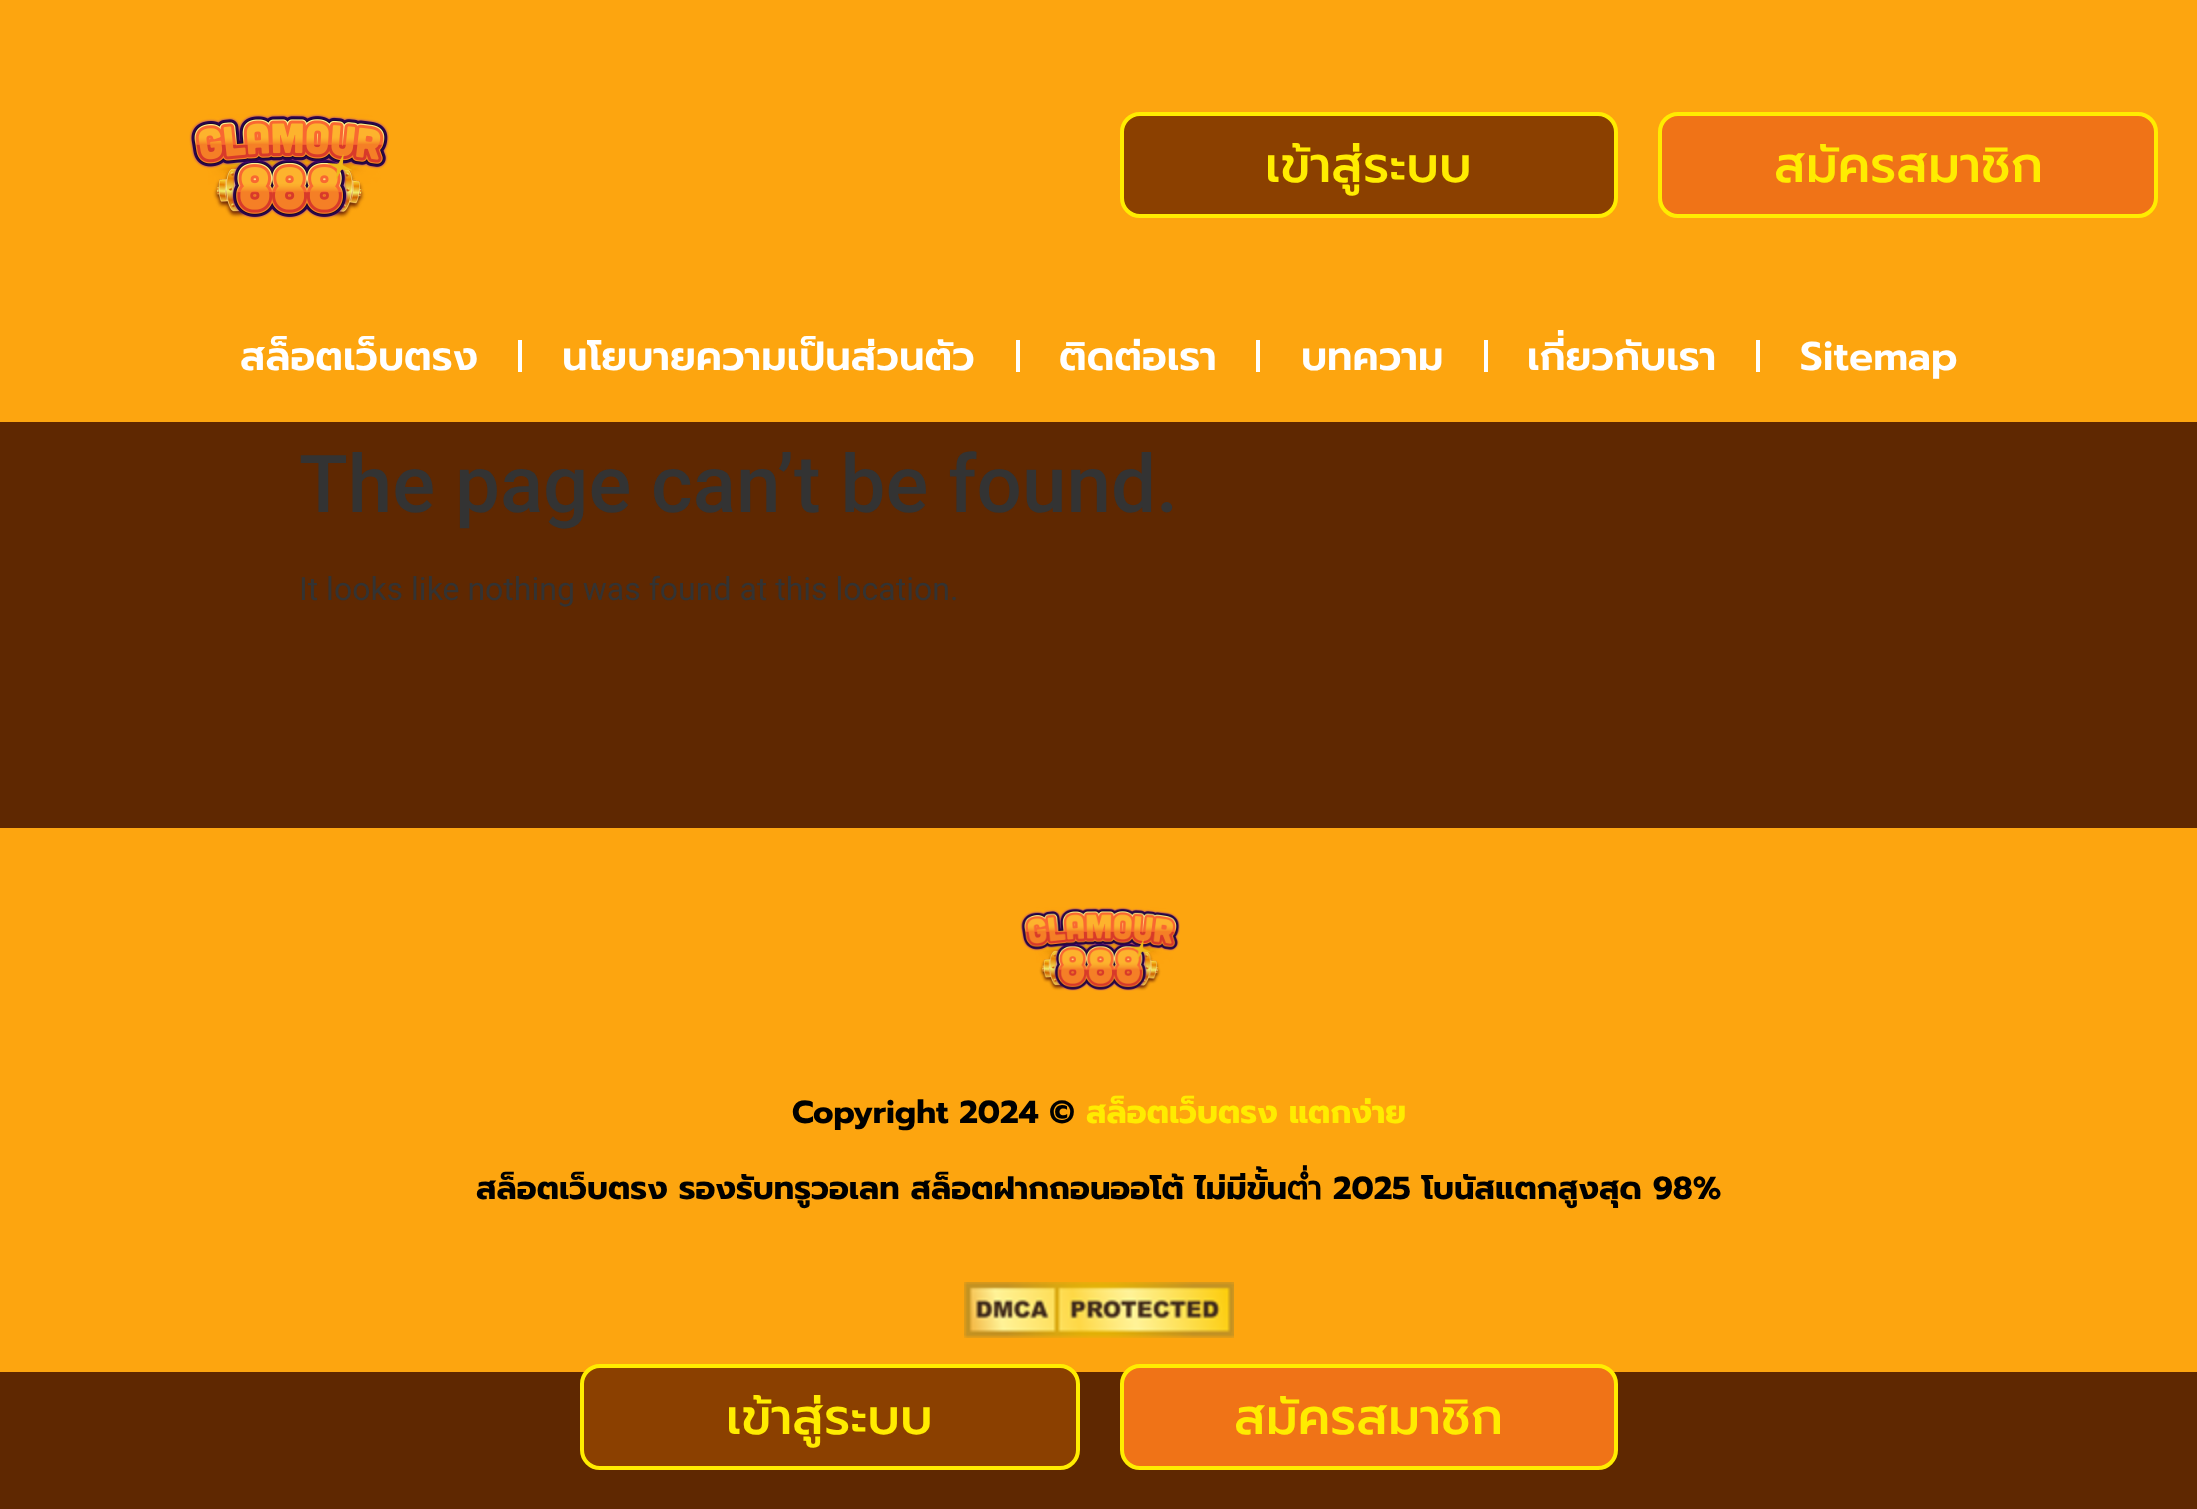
async function draw(canvas) {
  canvas.width = 2197
  canvas.height = 1509
  const ctx = canvas.getContext('2d')
  ctx.miterLimit = 4
  ctx.fontKerning = 'normal'
  async function loadImage(src) {
    const img = new Image()
    img.src = src
    await img.decode()
    return img
  }

  ctx.fillStyle = '#5f2801'
  ctx.fillRect(0, 0, 2197, 1509)
  ctx.fillStyle = '#fda50f'
  ctx.fillRect(0, 0, 2197, 422)
  ctx.drawImage(await loadImage('image0.png'), 189, 114, 200, 105)
  ctx.fillStyle = '#8b4000'
  ctx.beginPath()
  ctx.roundRect(1122, 114, 494, 102, 18)
  ctx.fill()
  ctx.strokeStyle = '#ffec00'
  ctx.lineWidth = 4
  ctx.stroke()
  ctx.font = '500 50px Prompt'
  ctx.fillStyle = '#ffec00'
  ctx.fillText('เข้าสู่ระบบ', 1265, 182)
  ctx.fillStyle = '#f07317'
  ctx.beginPath()
  ctx.roundRect(1660, 114, 496, 102, 18)
  ctx.fill()
  ctx.stroke()
  ctx.fillStyle = '#ffec00'
  ctx.fillText('สมัครสมาชิก', 1774, 182)
  ctx.font = '600 40px Prompt'
  ctx.fillStyle = '#fff'
  ctx.fillText('สล็อตเว็บตรง', 240, 370)
  ctx.fillRect(518, 340, 4, 32)
  ctx.fillText('นโยบายความเป็นส่วนตัว', 562, 370)
  ctx.fillRect(1016, 340, 4, 32)
  ctx.fillText('ติดต่อเรา', 1059, 370)
  ctx.fillRect(1256, 340, 4, 32)
  ctx.fillText('บทความ', 1301, 370)
  ctx.fillRect(1484, 340, 4, 32)
  ctx.fillText('เกี่ยวกับเรา', 1527, 370)
  ctx.fillRect(1756, 340, 4, 32)
  ctx.fillText('Sitemap', 1800, 370)
  ctx.font = '500 80px Roboto'
  ctx.fillStyle = '#333'
  ctx.fillText('The page can’t be found.', 299, 512)
  ctx.font = '32px Roboto'
  ctx.fillText('It looks like nothing was found at this location.', 299, 600)
  ctx.fillStyle = '#fda50f'
  ctx.fillRect(0, 828, 2197, 544)
  ctx.drawImage(await loadImage('image1.png'), 1020, 907, 160, 84)
  ctx.font = 'bold 32px Prompt'
  ctx.fillStyle = '#000'
  ctx.fillText('Copyright 2024 ©', 792, 1123)
  ctx.fillStyle = '#ffec00'
  ctx.fillText('สล็อตเว็บตรง แตกง่าย', 1086, 1123)
  ctx.fillStyle = '#000'
  ctx.fillText('สล็อตเว็บตรง รองรับทรูวอเลท สล็อตฝากถอนออโต้ ไม่มีขั้นต่ำ 2025 โบนัสแตกสูงสุด 98%', 476, 1199)
  ctx.drawImage(await loadImage('image2.png'), 964, 1282, 270, 56)
  ctx.fillStyle = '#8b4000'
  ctx.beginPath()
  ctx.roundRect(582, 1366, 496, 102, 18)
  ctx.fill()
  ctx.stroke()
  ctx.font = '500 50px Prompt'
  ctx.fillStyle = '#ffec00'
  ctx.fillText('เข้าสู่ระบบ', 726, 1434)
  ctx.fillStyle = '#f07317'
  ctx.beginPath()
  ctx.roundRect(1122, 1366, 494, 102, 18)
  ctx.fill()
  ctx.stroke()
  ctx.fillStyle = '#ffec00'
  ctx.fillText('สมัครสมาชิก', 1234, 1434)
}

draw(document.querySelector('canvas'))
